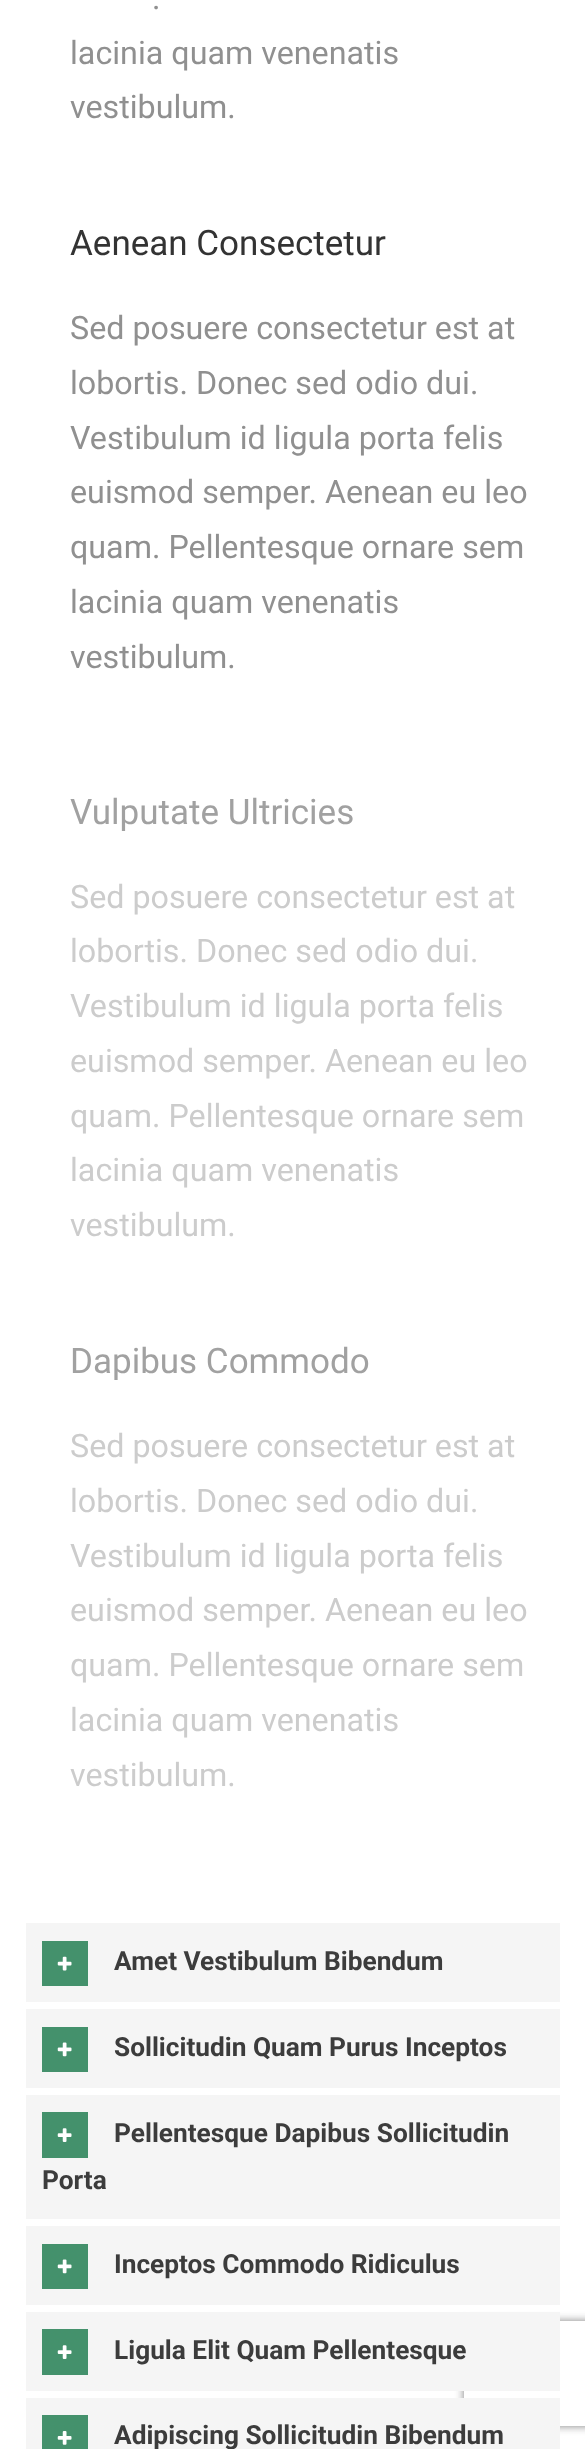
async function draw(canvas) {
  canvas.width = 585
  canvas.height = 2449
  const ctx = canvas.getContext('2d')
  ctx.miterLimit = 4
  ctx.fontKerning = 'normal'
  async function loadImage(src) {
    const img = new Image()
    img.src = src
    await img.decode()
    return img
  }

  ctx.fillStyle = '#fff'
  ctx.fillRect(0, 0, 585, 2449)
  ctx.font = '32.25px Roboto'
  ctx.fillStyle = '#909090'
  ctx.fillText('.', 152, 9)
  ctx.fillText('lacinia quam venenatis', 70, 64)
  ctx.fillText('vestibulum.', 70, 118)
  ctx.font = '35px Roboto'
  ctx.fillStyle = '#333'
  ctx.fillText('Aenean Consectetur', 70, 255)
  ctx.font = '32.25px Roboto'
  ctx.fillStyle = '#909090'
  ctx.fillText('Sed posuere consectetur est at', 70, 339)
  ctx.fillText('lobortis. Donec sed odio dui.', 70, 394)
  ctx.fillText('Vestibulum id ligula porta felis', 70, 449)
  ctx.fillText('euismod semper. Aenean eu leo', 70, 503)
  ctx.fillText('quam. Pellentesque ornare sem', 70, 558)
  ctx.fillText('lacinia quam venenatis', 70, 613)
  ctx.fillText('vestibulum.', 70, 668)
  ctx.font = '35px Roboto'
  ctx.fillStyle = '#a1a1a1'
  ctx.fillText('Vulputate Ultricies', 70, 824)
  ctx.font = '32.25px Roboto'
  ctx.fillStyle = '#ccc'
  ctx.fillText('Sed posuere consectetur est at', 70, 908)
  ctx.fillText('lobortis. Donec sed odio dui.', 70, 962)
  ctx.fillText('Vestibulum id ligula porta felis', 70, 1017)
  ctx.fillText('euismod semper. Aenean eu leo', 70, 1072)
  ctx.fillText('quam. Pellentesque ornare sem', 70, 1127)
  ctx.fillText('lacinia quam venenatis', 70, 1181)
  ctx.fillText('vestibulum.', 70, 1236)
  ctx.font = '35px Roboto'
  ctx.fillStyle = '#a1a1a1'
  ctx.fillText('Dapibus Commodo', 70, 1373)
  ctx.font = '32.25px Roboto'
  ctx.fillStyle = '#ccc'
  ctx.fillText('Sed posuere consectetur est at', 70, 1457)
  ctx.fillText('lobortis. Donec sed odio dui.', 70, 1512)
  ctx.fillText('Vestibulum id ligula porta felis', 70, 1567)
  ctx.fillText('euismod semper. Aenean eu leo', 70, 1621)
  ctx.fillText('quam. Pellentesque ornare sem', 70, 1676)
  ctx.fillText('lacinia quam venenatis', 70, 1731)
  ctx.fillText('vestibulum.', 70, 1786)
  ctx.fillStyle = '#f5f5f5'
  ctx.fillRect(26, 1923, 534, 79)
  ctx.fillStyle = '#44916c'
  ctx.fillRect(42, 1941, 46, 45)
  ctx.drawImage(await loadImage('image0.png'), 57, 1956, 15, 15)
  ctx.font = 'bold 26.25px Roboto'
  ctx.fillStyle = '#3c3c3c'
  ctx.fillText('Amet Vestibulum Bibendum', 114, 1970)
  ctx.fillStyle = '#f5f5f5'
  ctx.fillRect(26, 2009, 534, 79)
  ctx.fillStyle = '#44916c'
  ctx.fillRect(42, 2027, 46, 45)
  ctx.drawImage(await loadImage('image1.png'), 57, 2042, 15, 15)
  ctx.fillStyle = '#3c3c3c'
  ctx.fillText('Sollicitudin Quam Purus Inceptos', 114, 2056)
  ctx.fillStyle = '#f5f5f5'
  ctx.fillRect(26, 2095, 534, 124)
  ctx.fillStyle = '#44916c'
  ctx.fillRect(42, 2112, 46, 46)
  ctx.drawImage(await loadImage('image2.png'), 57, 2128, 15, 14)
  ctx.fillStyle = '#3c3c3c'
  ctx.fillText('Pellentesque Dapibus Sollicitudin', 114, 2142)
  ctx.fillText('Porta', 42, 2189)
  ctx.fillStyle = '#f5f5f5'
  ctx.fillRect(26, 2226, 534, 79)
  ctx.fillStyle = '#44916c'
  ctx.fillRect(42, 2244, 46, 45)
  ctx.drawImage(await loadImage('image1.png'), 57, 2259, 15, 15)
  ctx.fillStyle = '#3c3c3c'
  ctx.fillText('Inceptos Commodo Ridiculus', 114, 2273)
  ctx.save()
  ctx.beginPath()
  ctx.moveTo(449, 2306)
  ctx.lineTo(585, 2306)
  ctx.lineTo(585, 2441)
  ctx.lineTo(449, 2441)
  ctx.closePath()
  ctx.moveTo(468, 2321)
  ctx.lineTo(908, 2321)
  ctx.bezierCurveTo(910, 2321, 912, 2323, 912, 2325)
  ctx.lineTo(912, 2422)
  ctx.bezierCurveTo(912, 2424, 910, 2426, 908, 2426)
  ctx.lineTo(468, 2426)
  ctx.bezierCurveTo(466, 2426, 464, 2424, 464, 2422)
  ctx.lineTo(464, 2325)
  ctx.bezierCurveTo(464, 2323, 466, 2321, 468, 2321)
  ctx.closePath()
  ctx.clip('evenodd')
  ctx.fillStyle = '#808080'
  ctx.filter = 'blur(4.5px)'
  ctx.beginPath()
  ctx.roundRect(464, 2321, 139, 105, 4)
  ctx.fill()
  ctx.filter = 'none'
  ctx.restore()
  ctx.fillStyle = '#f5f5f5'
  ctx.fillRect(26, 2312, 534, 79)
  ctx.fillStyle = '#44916c'
  ctx.fillRect(42, 2329, 46, 46)
  ctx.drawImage(await loadImage('image2.png'), 57, 2345, 15, 14)
  ctx.fillStyle = '#3c3c3c'
  ctx.fillText('Ligula Elit Quam Pellentesque', 114, 2359)
  ctx.fillStyle = '#f5f5f5'
  ctx.fillRect(26, 2398, 534, 51)
  ctx.fillStyle = '#44916c'
  ctx.fillRect(42, 2415, 46, 34)
  ctx.drawImage(await loadImage('image3.png'), 57, 2431, 15, 14)
  ctx.fillStyle = '#3c3c3c'
  ctx.fillText('Adipiscing Sollicitudin Bibendum', 114, 2444)
}

draw(document.querySelector('canvas'))
